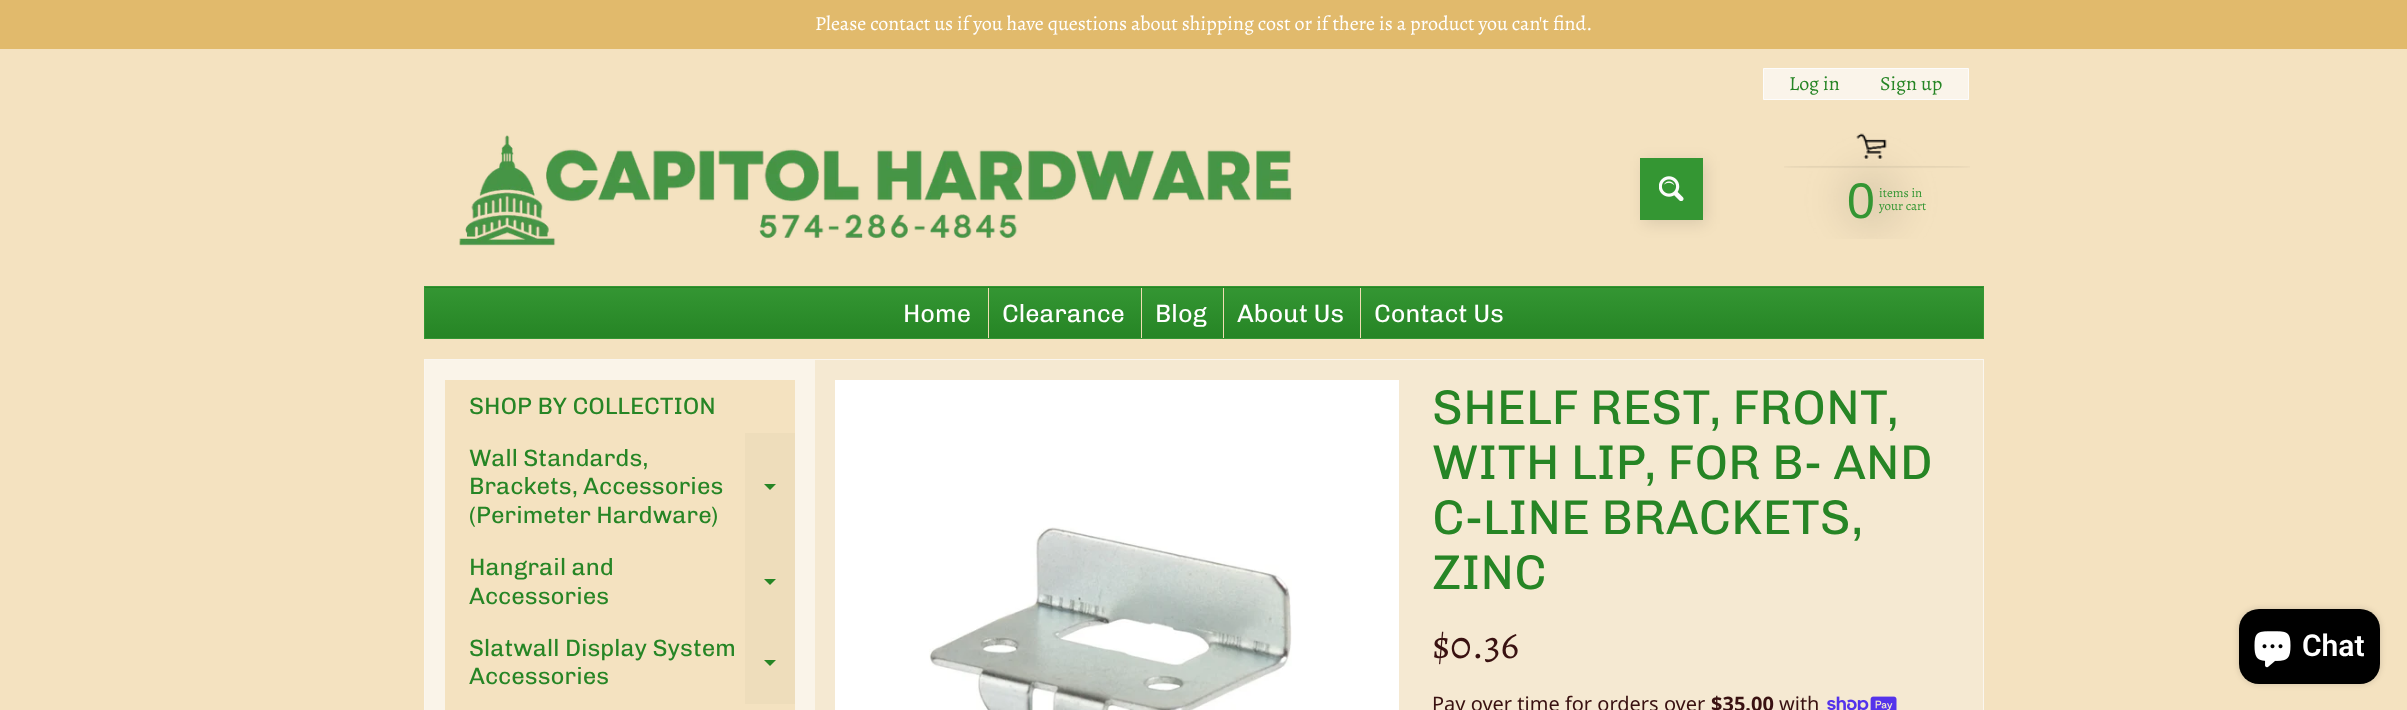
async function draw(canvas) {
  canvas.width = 2407
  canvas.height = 710
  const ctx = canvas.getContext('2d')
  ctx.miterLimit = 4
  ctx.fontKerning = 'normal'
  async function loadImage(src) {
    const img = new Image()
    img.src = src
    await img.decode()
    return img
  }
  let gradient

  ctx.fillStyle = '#f4e2c0'
  ctx.fillRect(0, 0, 2407, 710)
  ctx.fillStyle = '#e1ba6c'
  ctx.fillRect(0, 0, 2407, 49)
  ctx.font = '20px Alegreya'
  ctx.fillStyle = '#fff'
  ctx.fillText('Please contact us if you have questions about shipping cost or if there is a product you can\'t find.', 815, 30)
  ctx.drawImage(await loadImage('image0.png'), 459, 135, 833, 111)
  ctx.fillStyle = '#faf4ea'
  ctx.beginPath()
  ctx.rect(1763.5, 68.5, 205, 31)
  ctx.fill()
  ctx.strokeStyle = '#fcfcfc'
  ctx.stroke()
  ctx.fillStyle = '#268525'
  ctx.fillText('Log in', 1789, 90)
  ctx.fillText('Sign up', 1880, 90)
  ctx.fillStyle = '#0000001a'
  ctx.filter = 'blur(7.5px)'
  ctx.beginPath()
  ctx.rect(1644, 161, 62, 63)
  ctx.fill()
  ctx.filter = 'none'
  ctx.fillStyle = '#349633'
  ctx.fillRect(1640, 158, 63, 62)
  ctx.drawImage(await loadImage('image1.png'), 1659, 176, 25, 25)
  ctx.drawImage(await loadImage('image2.png'), 1784, 133, 186, 106)
  ctx.font = '50px Liberation Sans'
  ctx.fillText('0', 1847, 218)
  ctx.font = '13px Alegreya'
  ctx.fillText('items in', 1879, 197)
  ctx.fillText('your cart', 1879, 210)
  gradient = ctx.createLinearGradient(1204, 237, 1204, 288)
  gradient.addColorStop(0, '#349633')
  gradient.addColorStop(1, '#268525')
  ctx.fillStyle = gradient
  ctx.fillRect(424, 287, 1560, 1)
  gradient = ctx.createLinearGradient(1204, 287, 1204, 338)
  gradient.addColorStop(0, '#349633')
  gradient.addColorStop(1, '#268525')
  ctx.fillStyle = gradient
  ctx.fillRect(425, 288, 1558, 50)
  ctx.strokeStyle = '#349633'
  ctx.strokeRect(424.5, 286.5, 1559, 52)
  ctx.font = '25px Chivo'
  ctx.fillStyle = '#fff'
  ctx.fillText('Home', 903, 322)
  ctx.fillStyle = '#f2ddb3'
  ctx.fillRect(988, 288, 1, 50)
  ctx.fillStyle = '#fff'
  ctx.fillText('Clearance', 1002, 322)
  ctx.fillStyle = '#f2ddb3'
  ctx.fillRect(1141, 288, 1, 50)
  ctx.fillStyle = '#fff'
  ctx.fillText('Blog', 1155, 322)
  ctx.fillStyle = '#f2ddb3'
  ctx.fillRect(1223, 288, 1, 50)
  ctx.fillStyle = '#fff'
  ctx.fillText('About Us', 1237, 322)
  ctx.fillStyle = '#f2ddb3'
  ctx.fillRect(1360, 288, 1, 50)
  ctx.fillStyle = '#fff'
  ctx.fillText('Contact Us', 1374, 322)
  ctx.fillStyle = '#f5e9d2'
  ctx.fillRect(815, 360, 1168, 350)
  ctx.strokeStyle = '#faf6ef'
  ctx.strokeRect(424.5, 359.5, 1559, 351)
  ctx.fillStyle = '#faf4e9'
  ctx.fillRect(425, 360, 390, 350)
  ctx.fillStyle = '#f4e2c0'
  ctx.fillRect(445, 380, 350, 53)
  ctx.font = '23.75px Chivo'
  ctx.fillStyle = '#268525'
  ctx.fillText('SHOP BY COLLECTION', 469, 414)
  ctx.fillStyle = '#f4e2c0'
  ctx.fillRect(445, 433, 300, 271)
  ctx.fillStyle = '#268525'
  ctx.fillText('Wall Standards,', 469, 466)
  ctx.fillStyle = '#edb'
  ctx.fillRect(745, 433, 50, 271)
  ctx.fillStyle = '#268525'
  ctx.beginPath()
  ctx.moveTo(764, 484)
  ctx.lineTo(776, 484)
  ctx.lineTo(770, 490)
  ctx.closePath()
  ctx.fill()
  ctx.fillText('Brackets, Accessories', 469, 494)
  ctx.fillText('(Perimeter Hardware)', 469, 523)
  ctx.fillText('Hangrail and', 469, 575)
  ctx.beginPath()
  ctx.moveTo(764, 579)
  ctx.lineTo(776, 579)
  ctx.lineTo(770, 585)
  ctx.closePath()
  ctx.fill()
  ctx.fillText('Accessories', 469, 604)
  ctx.fillText('Slatwall Display System', 469, 656)
  ctx.beginPath()
  ctx.moveTo(764, 660)
  ctx.lineTo(776, 660)
  ctx.lineTo(770, 666)
  ctx.closePath()
  ctx.fill()
  ctx.fillText('Accessories', 469, 684)
  ctx.fillStyle = '#f4e2c0'
  ctx.fillRect(445, 704, 350, 6)
  ctx.fillStyle = '#fff'
  ctx.fillRect(835, 380, 564, 330)
  ctx.drawImage(await loadImage('image3.png'), 929, 527, 363, 183)
  ctx.font = '48.75px Chivo'
  ctx.fillStyle = '#268525'
  ctx.fillText('SHELF REST, FRONT,', 1432, 424)
  ctx.fillText('WITH LIP, FOR B- AND', 1432, 479)
  ctx.fillText('C-LINE BRACKETS,', 1432, 534)
  ctx.fillText('ZINC', 1432, 589)
  ctx.font = '40px Alegreya'
  ctx.fillStyle = '#391111'
  ctx.fillText('$0.36', 1432, 658)
  ctx.font = '20px Noto Sans'
  ctx.fillText('Pay over time for orders over', 1432, 711)
  ctx.font = 'bold 20px Noto Sans'
  ctx.fillText('$35.00', 1711, 711)
  ctx.font = '20px Noto Sans'
  ctx.fillText('with', 1779, 711)
  ctx.drawImage(await loadImage('image4.png'), 1827, 696, 70, 14)
  ctx.fillStyle = '#00000026'
  ctx.filter = 'blur(3px)'
  ctx.beginPath()
  ctx.roundRect(2239, 609, 141, 75, 20)
  ctx.fill()
  ctx.filter = 'none'
  ctx.fillStyle = '#000'
  ctx.beginPath()
  ctx.roundRect(2239, 609, 141, 75, 20)
  ctx.fill()
  ctx.drawImage(await loadImage('image5.png'), 2254, 631, 37, 37)
  ctx.font = '600 30px Roboto'
  ctx.fillStyle = '#fff'
  ctx.fillText('Chat', 2302, 656)
}

draw(document.querySelector('canvas'))
